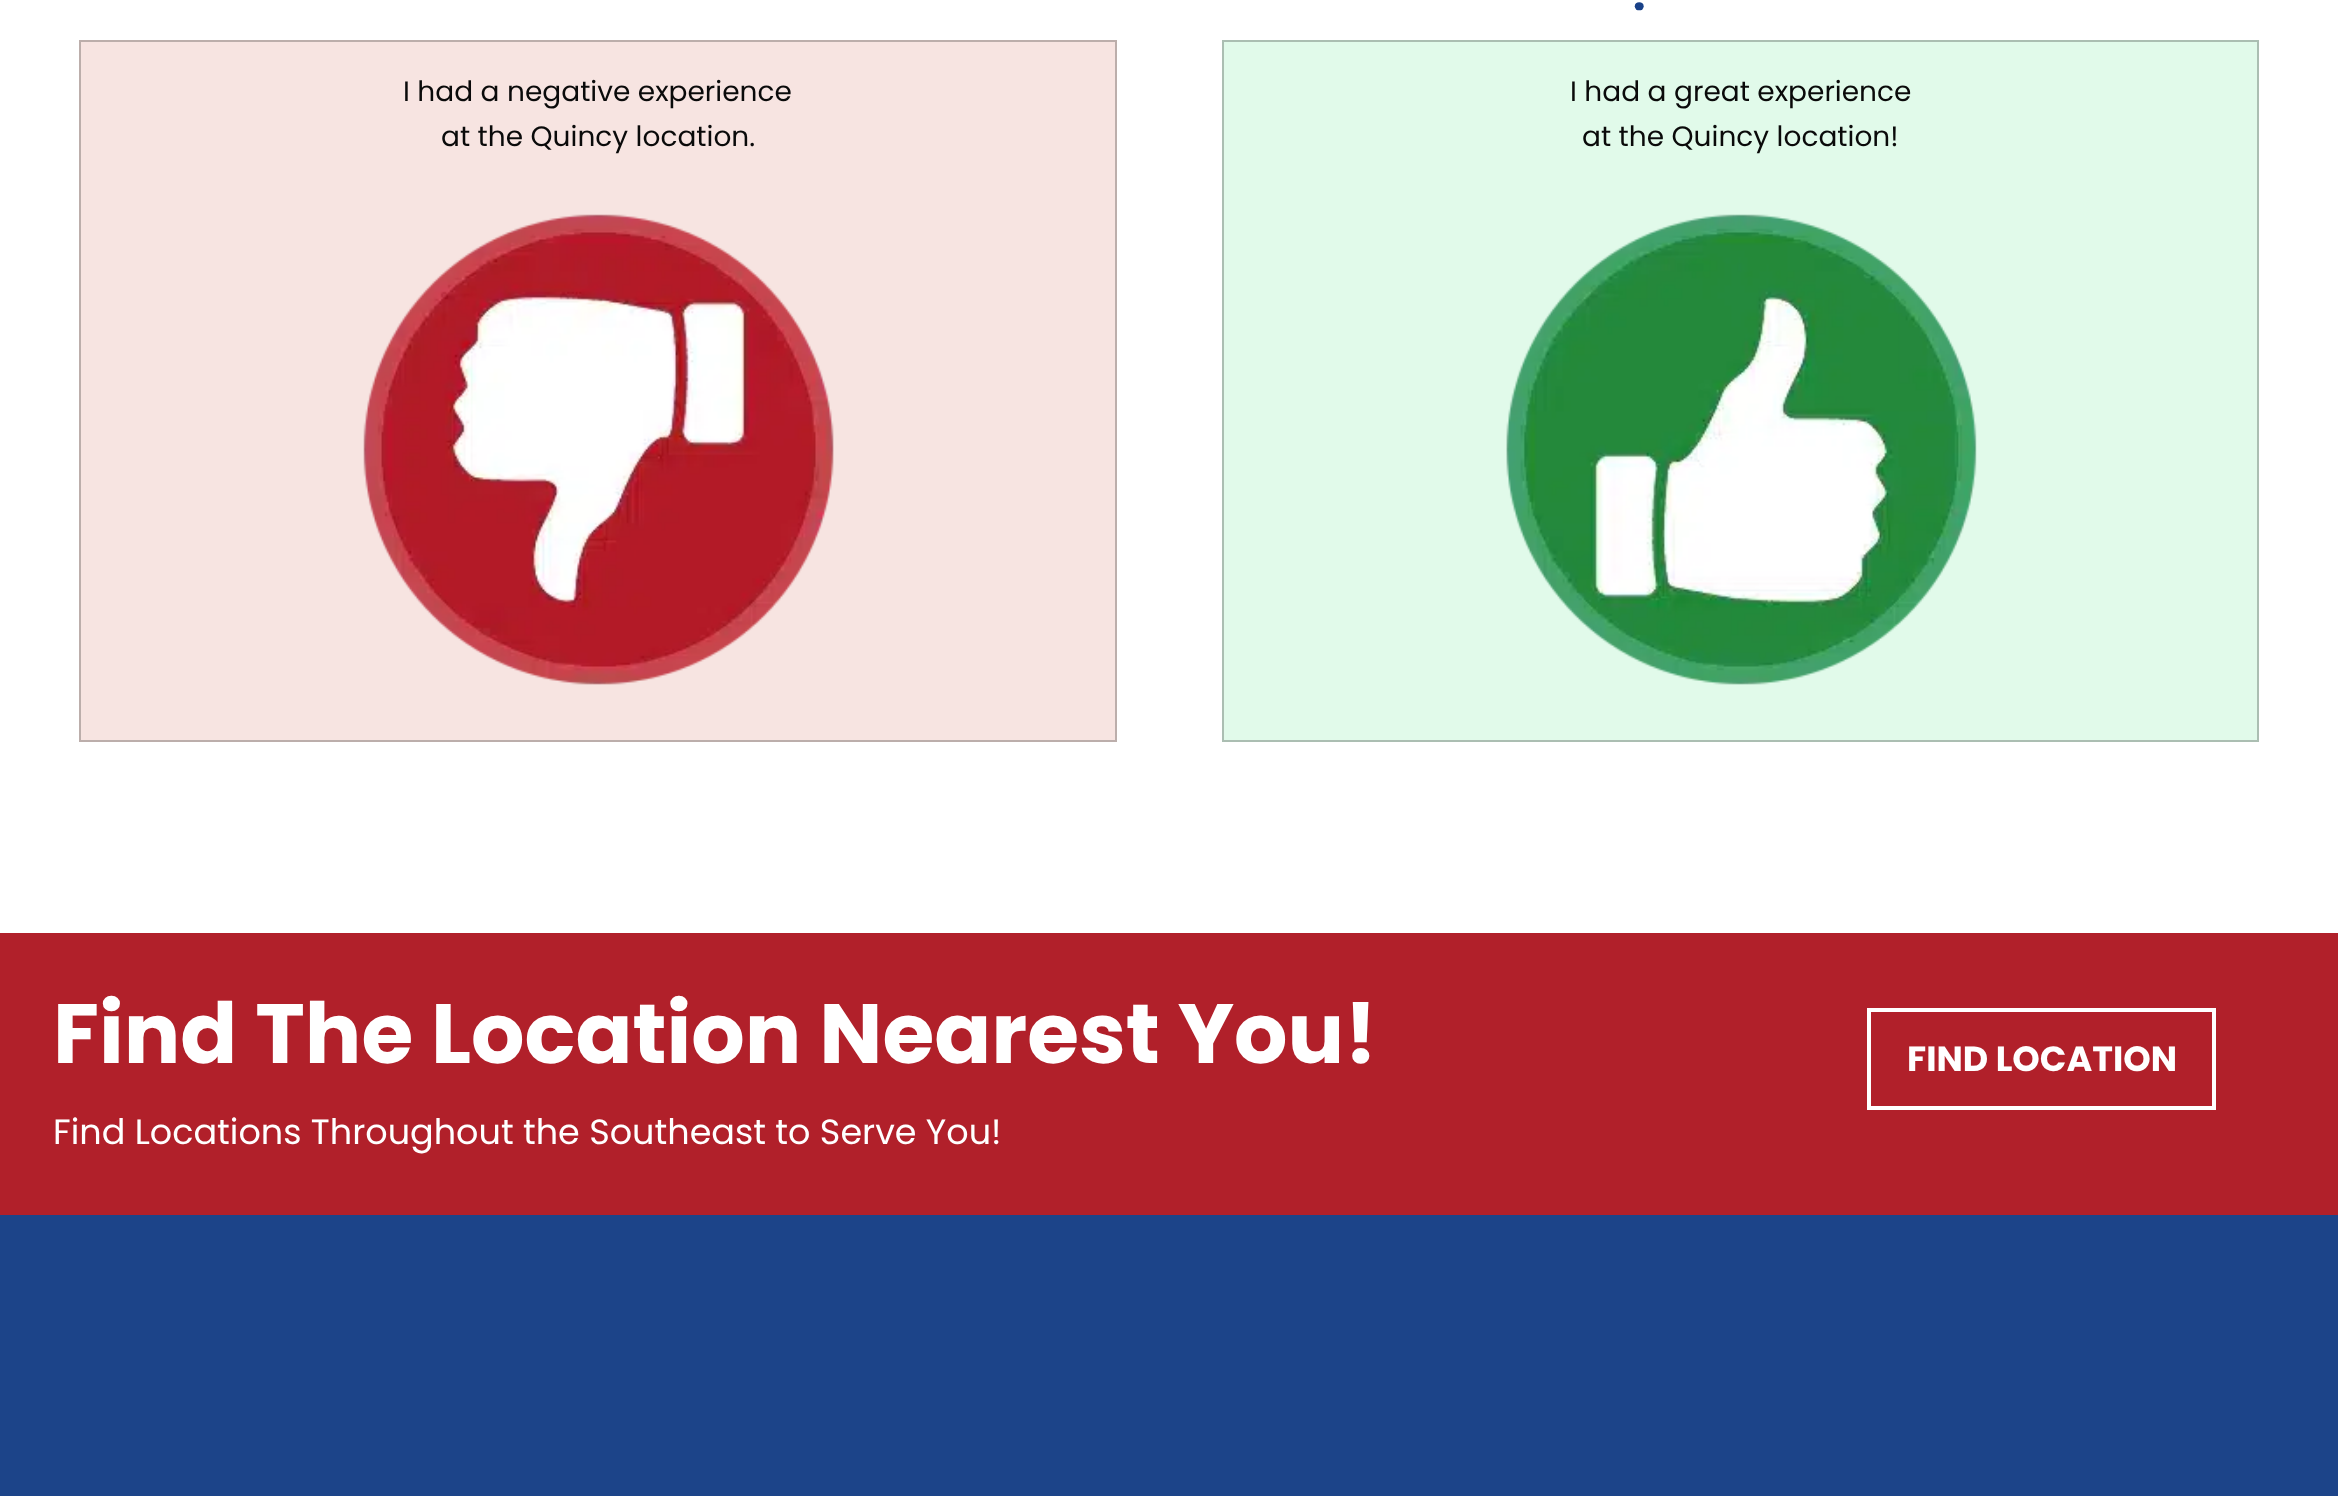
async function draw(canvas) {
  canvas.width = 2338
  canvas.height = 1496
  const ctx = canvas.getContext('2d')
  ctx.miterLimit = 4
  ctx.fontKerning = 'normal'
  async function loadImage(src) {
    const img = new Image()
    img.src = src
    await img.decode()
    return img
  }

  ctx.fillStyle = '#fff'
  ctx.fillRect(0, 0, 2338, 1496)
  ctx.font = 'bold 44px Poppins'
  ctx.fillStyle = '#194188'
  ctx.fillText('.', 1633, 10)
  ctx.fillStyle = '#f7e4e1'
  ctx.beginPath()
  ctx.rect(80, 41, 1036, 700)
  ctx.fill()
  ctx.strokeStyle = '#bcaeab'
  ctx.lineWidth = 2
  ctx.stroke()
  ctx.font = '28px Poppins'
  ctx.fillStyle = '#0a0a0a'
  ctx.fillText('I had a negative experience', 403, 101)
  ctx.fillText('at the Quincy location.', 441, 146)
  ctx.drawImage(await loadImage('image0.png'), 363, 214, 471, 471)
  ctx.fillStyle = '#e1faea'
  ctx.beginPath()
  ctx.rect(1223, 41, 1035, 700)
  ctx.fill()
  ctx.strokeStyle = '#abbeb2'
  ctx.stroke()
  ctx.fillStyle = '#0a0a0a'
  ctx.fillText('I had a great experience', 1570, 101)
  ctx.fillText('at the Quincy location!', 1582, 146)
  ctx.drawImage(await loadImage('image1.png'), 1506, 214, 471, 471)
  ctx.fillStyle = '#b1202a'
  ctx.fillRect(0, 933, 2338, 282)
  ctx.font = 'bold 84px Poppins'
  ctx.fillStyle = '#fff'
  ctx.fillText('Find The Location Nearest You!', 53, 1063)
  ctx.font = '35px Poppins'
  ctx.fillText('Find Locations Throughout the Southeast to Serve You!', 53, 1144)
  ctx.strokeStyle = '#fff'
  ctx.lineWidth = 4
  ctx.strokeRect(1869, 1010, 345, 98)
  ctx.font = 'bold 35px Poppins'
  ctx.fillText('FIND LOCATION', 1907, 1071)
  ctx.fillStyle = '#1c4489'
  ctx.fillRect(0, 1215, 2338, 281)
}

draw(document.querySelector('canvas'))
